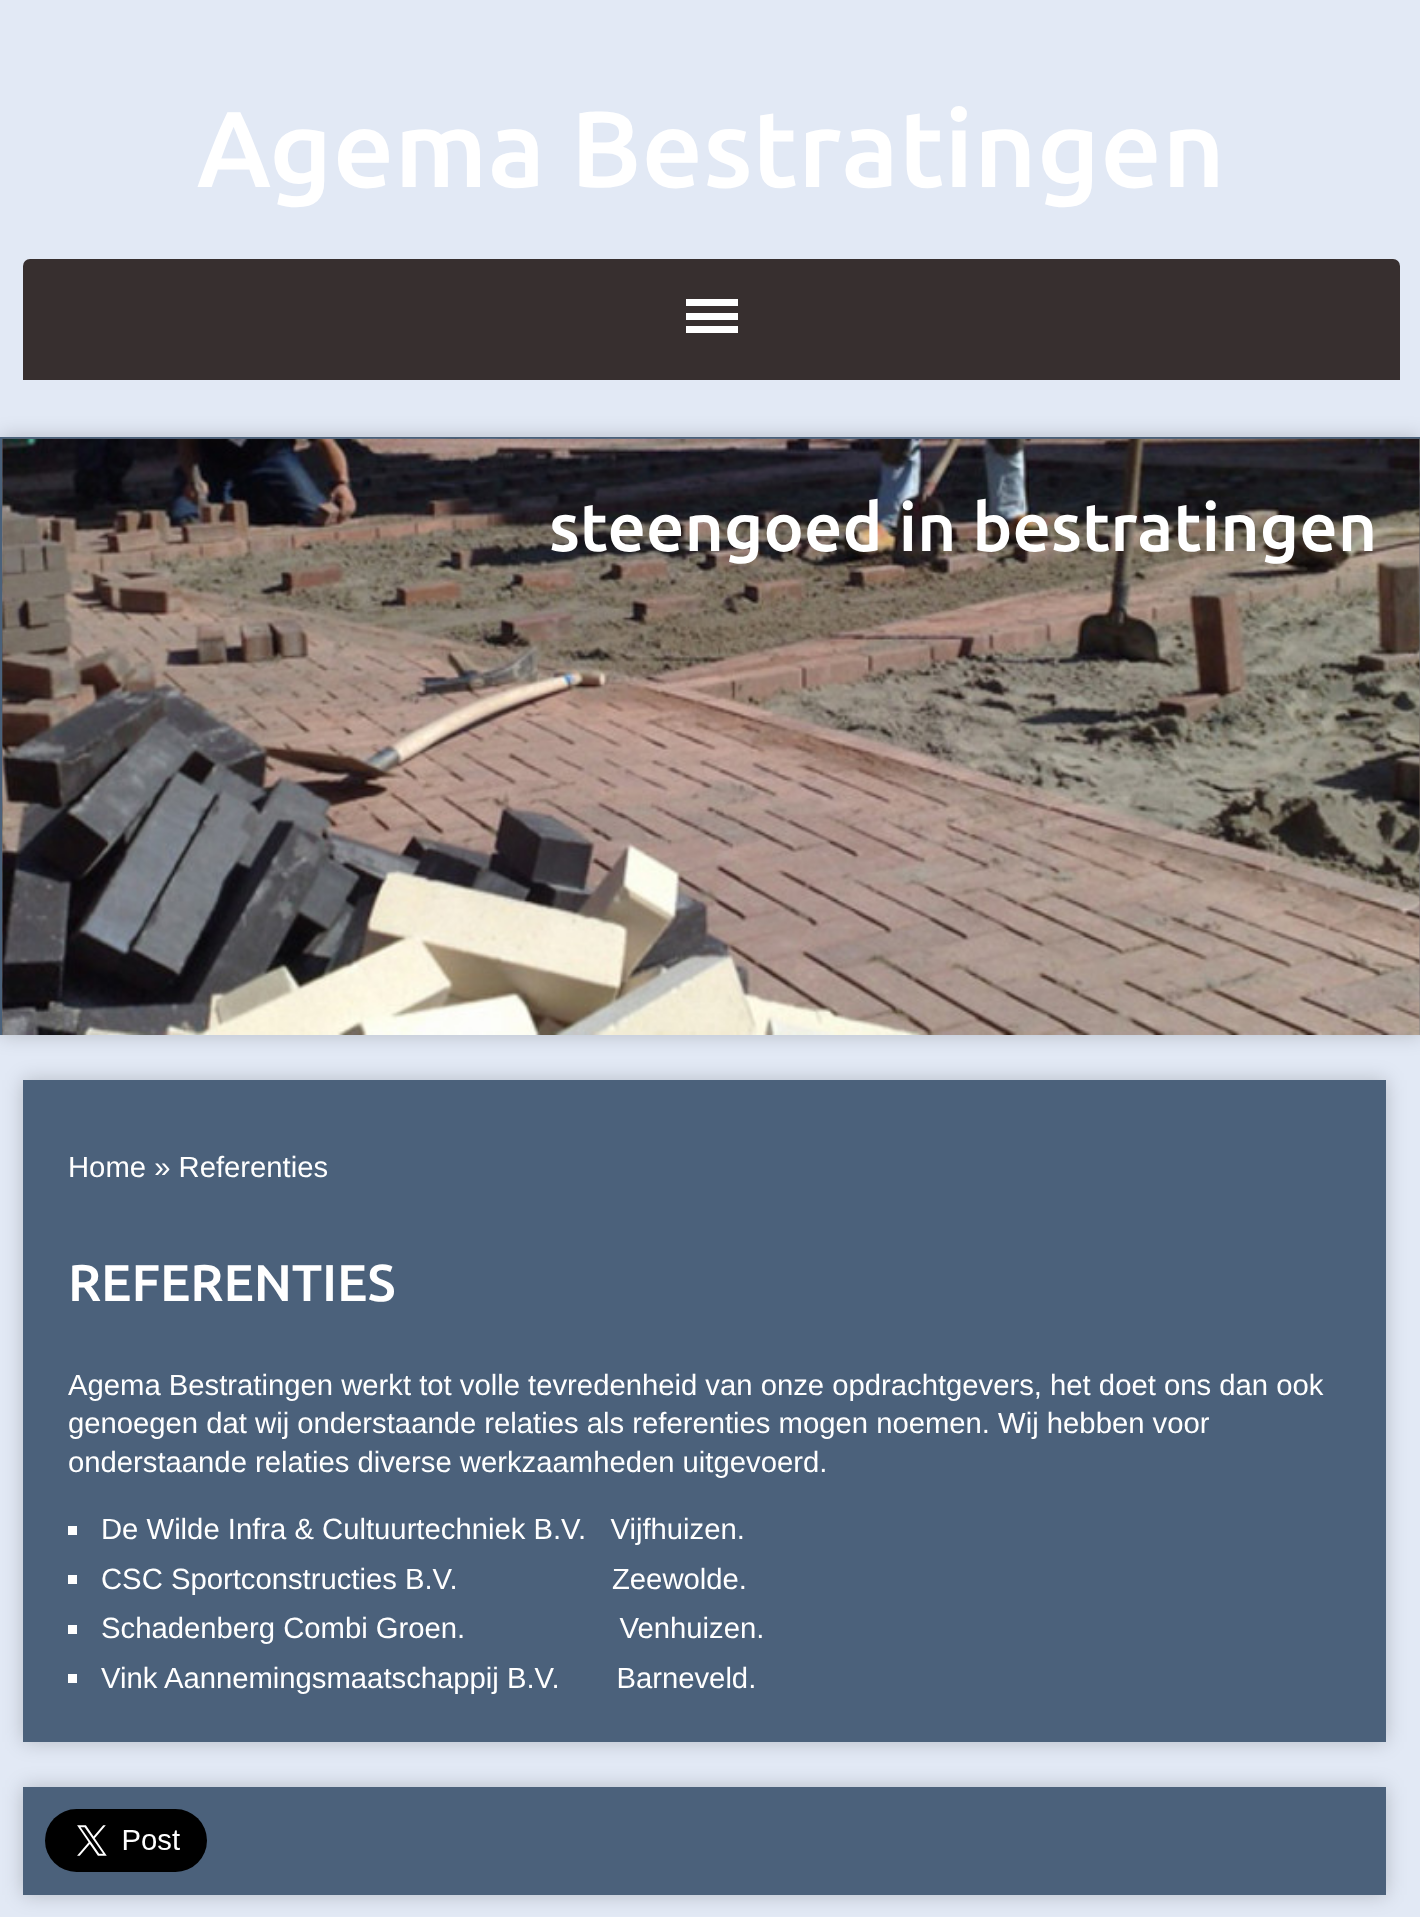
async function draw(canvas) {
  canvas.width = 1420
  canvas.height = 1917
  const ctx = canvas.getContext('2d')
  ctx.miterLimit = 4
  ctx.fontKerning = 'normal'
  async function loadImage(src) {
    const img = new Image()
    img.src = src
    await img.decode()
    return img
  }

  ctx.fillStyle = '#e2e9f5'
  ctx.fillRect(0, 0, 1420, 1917)
  ctx.font = '500 108px Ubuntu'
  ctx.fillStyle = '#fff'
  ctx.fillText('Agema Bestratingen', 197, 187)
  ctx.fillStyle = '#372f2f'
  ctx.beginPath()
  ctx.roundRect(23, 259, 1377, 121, [7, 7, 0, 0])
  ctx.fill()
  ctx.fillStyle = '#fff'
  ctx.fillRect(686, 299, 52, 7)
  ctx.fillRect(686, 313, 52, 7)
  ctx.fillRect(686, 326, 52, 7)
  ctx.fillStyle = '#00000033'
  ctx.filter = 'blur(10px)'
  ctx.beginPath()
  ctx.rect(0, 437, 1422, 598)
  ctx.fill()
  ctx.filter = 'none'
  ctx.fillStyle = '#4a617a'
  ctx.fillRect(0, 437, 1420, 598)
  ctx.drawImage(await loadImage('image0.png'), 2, 438, 1418, 597)
  ctx.drawImage(await loadImage('image1.png'), 2, 438, 1418, 597)
  ctx.drawImage(await loadImage('image2.png'), 2, 438, 1418, 597)
  ctx.drawImage(await loadImage('image3.png'), 2, 438, 1418, 597)
  ctx.font = '500 67.5px Ubuntu'
  ctx.fillStyle = '#fff'
  ctx.fillText('steengoed in bestratingen', 549, 551)
  ctx.save()
  ctx.beginPath()
  ctx.moveTo(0, 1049)
  ctx.lineTo(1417, 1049)
  ctx.lineTo(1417, 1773)
  ctx.lineTo(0, 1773)
  ctx.closePath()
  ctx.moveTo(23, 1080)
  ctx.lineTo(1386, 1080)
  ctx.lineTo(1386, 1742)
  ctx.lineTo(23, 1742)
  ctx.closePath()
  ctx.clip('evenodd')
  ctx.fillStyle = '#00000033'
  ctx.filter = 'blur(10px)'
  ctx.beginPath()
  ctx.rect(23, 1080, 1363, 662)
  ctx.fill()
  ctx.filter = 'none'
  ctx.restore()
  ctx.fillStyle = '#253f5ccc'
  ctx.fillRect(23, 1080, 1363, 662)
  ctx.font = '29.25px Liberation Sans'
  ctx.fillStyle = '#fff'
  ctx.fillText('Home » Referenties', 68, 1177)
  ctx.font = '500 51.75px Ubuntu'
  ctx.fillText('REFERENTIES', 68, 1301)
  ctx.font = '29.25px Liberation Sans'
  ctx.fillText('Agema Bestratingen werkt tot volle tevredenheid van onze opdrachtgevers, het doet ons dan ook', 68, 1395)
  ctx.fillText('genoegen dat wij onderstaande relaties als referenties mogen noemen. Wij hebben voor', 68, 1433)
  ctx.fillText('onderstaande relaties diverse werkzaamheden uitgevoerd.', 68, 1472)
  ctx.fillRect(68, 1526, 9, 9)
  ctx.fillText('De Wilde Infra & Cultuurtechniek B.V.   Vijfhuizen.', 101, 1539)
  ctx.fillRect(68, 1575, 9, 9)
  ctx.fillText('CSC Sportconstructies B.V.                   Zeewolde.', 101, 1589)
  ctx.fillRect(68, 1625, 9, 9)
  ctx.fillText('Schadenberg Combi Groen.                   Venhuizen.', 101, 1638)
  ctx.fillRect(68, 1674, 9, 9)
  ctx.fillText('Vink Aannemingsmaatschappij B.V.       Barneveld.', 101, 1688)
  ctx.save()
  ctx.beginPath()
  ctx.moveTo(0, 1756)
  ctx.lineTo(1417, 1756)
  ctx.lineTo(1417, 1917)
  ctx.lineTo(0, 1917)
  ctx.closePath()
  ctx.moveTo(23, 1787)
  ctx.lineTo(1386, 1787)
  ctx.lineTo(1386, 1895)
  ctx.lineTo(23, 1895)
  ctx.closePath()
  ctx.clip('evenodd')
  ctx.fillStyle = '#00000033'
  ctx.filter = 'blur(10px)'
  ctx.beginPath()
  ctx.rect(23, 1787, 1363, 108)
  ctx.fill()
  ctx.filter = 'none'
  ctx.restore()
  ctx.fillStyle = '#253f5ccc'
  ctx.fillRect(23, 1787, 1363, 108)
  ctx.drawImage(await loadImage('image4.png'), 45, 1809, 162, 63)
}

draw(document.querySelector('canvas'))
